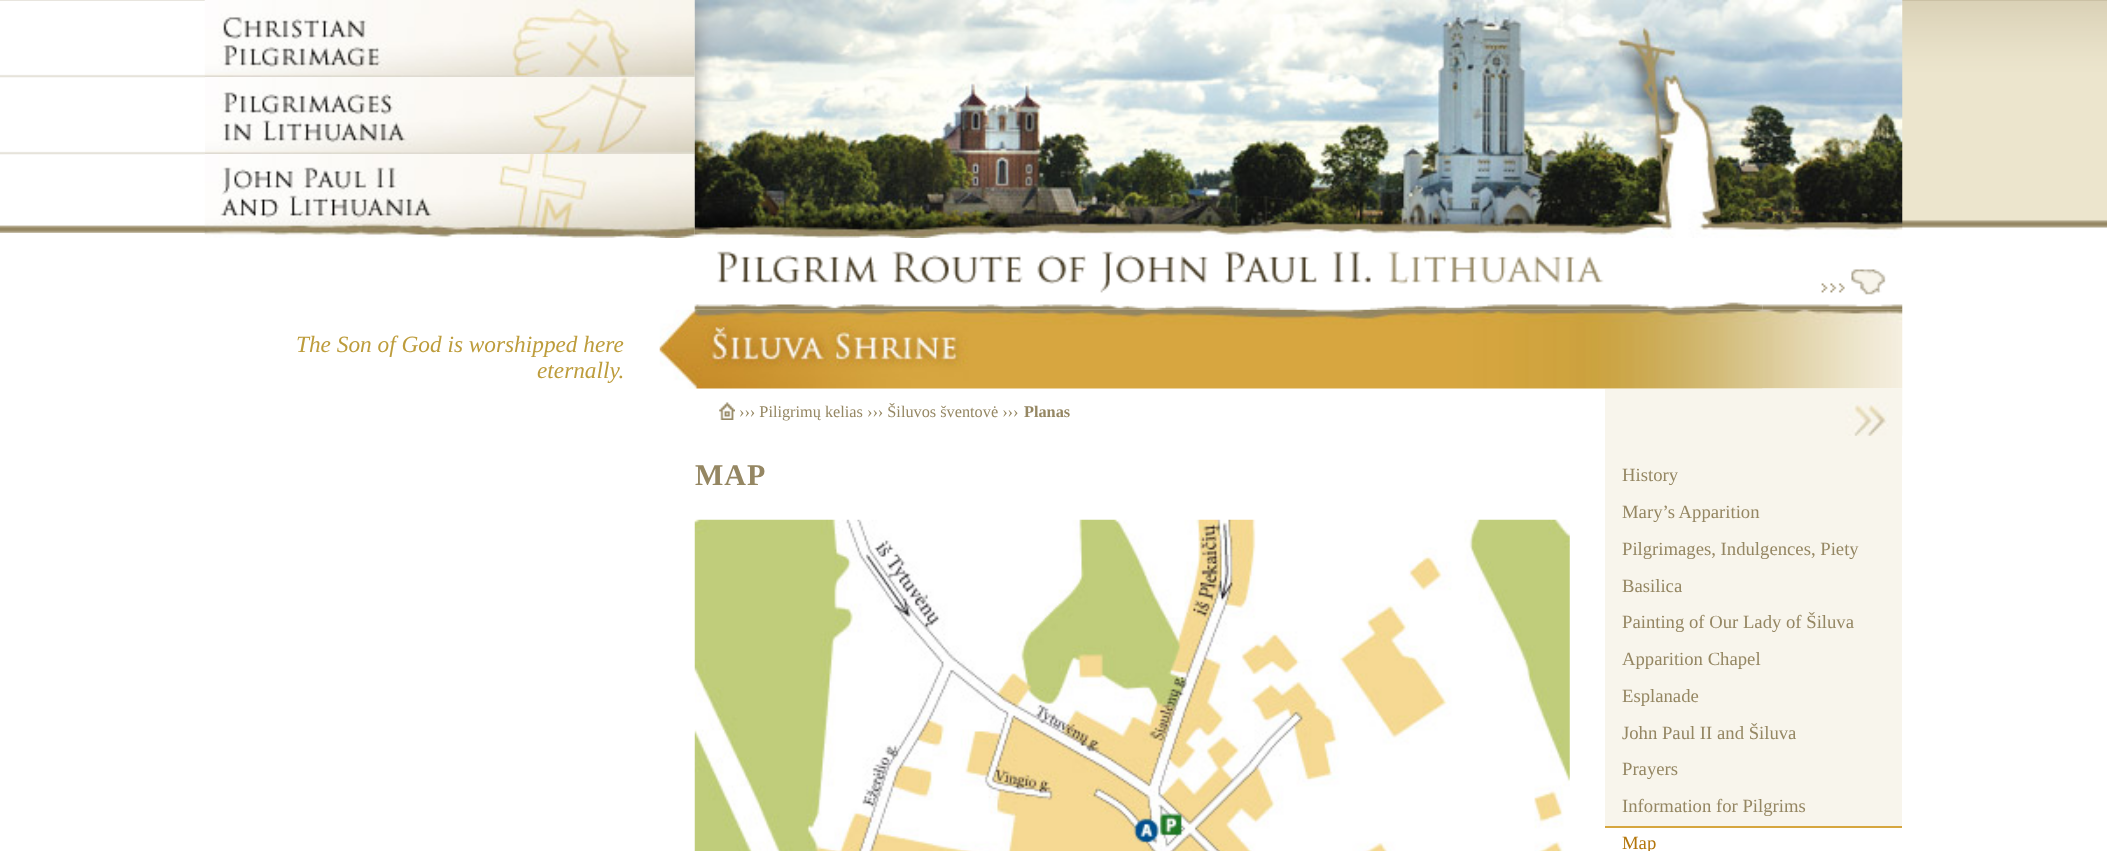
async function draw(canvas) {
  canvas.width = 2107
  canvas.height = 851
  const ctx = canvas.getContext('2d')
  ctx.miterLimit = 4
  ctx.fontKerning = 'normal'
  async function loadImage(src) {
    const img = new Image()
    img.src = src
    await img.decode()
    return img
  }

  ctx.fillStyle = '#fff'
  ctx.fillRect(0, 0, 2107, 851)
  ctx.drawImage(await loadImage('image0.png'), 0, 0, 205, 233)
  ctx.drawImage(await loadImage('image1.png'), 1902, 0, 205, 233)
  ctx.drawImage(await loadImage('image2.png'), 204, 0, 491, 77)
  ctx.drawImage(await loadImage('image3.png'), 205, 77, 490, 77)
  ctx.drawImage(await loadImage('image4.png'), 204, 154, 491, 84)
  ctx.drawImage(await loadImage('image5.png'), 694, 0, 1209, 238)
  ctx.font = 'italic 23.3px Liberation Serif'
  ctx.fillStyle = '#bd9c3b'
  ctx.fillText('The Son of God is worshipped here', 296, 352)
  ctx.fillText('eternally.', 537, 378)
  ctx.drawImage(await loadImage('image6.png'), 694, 251, 1069, 59)
  ctx.drawImage(await loadImage('image7.png'), 1762, 269, 141, 41)
  ctx.drawImage(await loadImage('image8.png'), 659, 309, 1244, 80)
  ctx.drawImage(await loadImage('image9.png'), 719, 402, 16, 18)
  ctx.font = '16.3px Liberation Serif'
  ctx.fillStyle = '#958763'
  ctx.fillText('››› Piligrimų kelias ››› Šiluvos šventovė ›››', 739, 417)
  ctx.font = 'bold 16.3px Liberation Serif'
  ctx.fillText('Planas', 1024, 417)
  ctx.letterSpacing = '1px'
  ctx.font = 'bold 30px Liberation Serif'
  ctx.fillText('MAP', 695, 485)
  ctx.drawImage(await loadImage('image10.png'), 694, 519, 876, 332)
  ctx.fillStyle = '#f8f5ec'
  ctx.fillRect(1605, 389, 297, 437)
  ctx.drawImage(await loadImage('image11.png'), 1762, 388, 141, 48)
  ctx.letterSpacing = '0px'
  ctx.font = '18.7px Liberation Serif'
  ctx.fillStyle = '#958763'
  ctx.fillText('History', 1622, 481)
  ctx.fillText('Mary’s Apparition', 1622, 518)
  ctx.fillText('Pilgrimages, Indulgences, Piety', 1622, 555)
  ctx.fillText('Basilica', 1622, 592)
  ctx.fillText('Painting of Our Lady of Šiluva', 1622, 628)
  ctx.fillText('Apparition Chapel', 1622, 665)
  ctx.fillText('Esplanade', 1622, 702)
  ctx.fillText('John Paul II and Šiluva', 1622, 739)
  ctx.fillText('Prayers', 1622, 775)
  ctx.fillText('Information for Pilgrims', 1622, 812)
  ctx.fillStyle = '#d6a63f'
  ctx.fillRect(1605, 826, 297, 2)
  ctx.fillStyle = '#b3750a'
  ctx.fillText('Map', 1622, 849)
}

draw(document.querySelector('canvas'))
